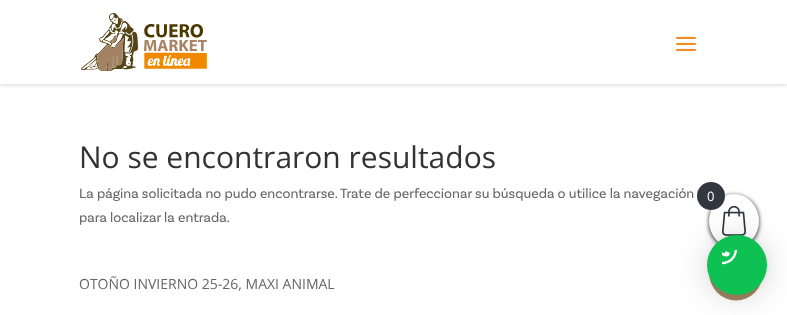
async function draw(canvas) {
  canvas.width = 787
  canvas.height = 315
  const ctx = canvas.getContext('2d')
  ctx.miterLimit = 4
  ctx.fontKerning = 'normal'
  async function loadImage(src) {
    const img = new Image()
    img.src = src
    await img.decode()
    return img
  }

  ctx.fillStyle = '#fff'
  ctx.fillRect(0, 0, 787, 315)
  ctx.save()
  ctx.beginPath()
  ctx.rect(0, 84, 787, 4)
  ctx.clip()
  ctx.fillStyle = '#32364033'
  ctx.filter = 'blur(2px)'
  ctx.beginPath()
  ctx.rect(0, 1, 787, 84)
  ctx.fill()
  ctx.filter = 'none'
  ctx.restore()
  ctx.drawImage(await loadImage('image0.png'), 81, 13, 126, 58)
  ctx.drawImage(await loadImage('image1.png'), 676, 36, 20, 15)
  ctx.font = '30px Open Sans'
  ctx.fillStyle = '#333'
  ctx.fillText('No se encontraron resultados', 79, 168)
  ctx.font = '14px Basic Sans'
  ctx.fillStyle = '#666'
  ctx.fillText('La página solicitada no pudo encontrarse. Trate de perfeccionar su búsqueda o utilice la navegación', 79, 198)
  ctx.fillText('para localizar la entrada.', 79, 222)
  ctx.font = '14px Open Sans'
  ctx.fillText('OTOÑO INVIERNO 25-26, MAXI ANIMAL', 79, 289)
  ctx.fillStyle = '#a68464'
  ctx.beginPath()
  ctx.ellipse(736, 272, 27, 28.5, 0, 0, 2 * Math.PI)
  ctx.fill()
  ctx.fillStyle = '#323640'
  ctx.filter = 'blur(2px)'
  ctx.beginPath()
  ctx.roundRect(709, 195, 50, 54, 25)
  ctx.fill()
  ctx.filter = 'none'
  ctx.fillStyle = '#fff'
  ctx.beginPath()
  ctx.ellipse(734, 221, 25, 27, 0, 0, 2 * Math.PI)
  ctx.fill()
  ctx.fillStyle = '#323640'
  ctx.beginPath()
  ctx.arc(711, 196, 14, 0, 2 * Math.PI)
  ctx.fill()
  ctx.drawImage(await loadImage('image3.png'), 722, 205, 24, 31)
  ctx.fillStyle = '#00000029'
  ctx.filter = 'blur(16px)'
  ctx.beginPath()
  ctx.roundRect(707, 237, 60, 60, 30)
  ctx.fill()
  ctx.filter = 'none'
  ctx.fillStyle = '#0000000f'
  ctx.filter = 'blur(3px)'
  ctx.beginPath()
  ctx.roundRect(707, 236, 60, 60, 30)
  ctx.fill()
  ctx.filter = 'none'
  ctx.fillStyle = '#0dc152'
  ctx.beginPath()
  ctx.arc(737, 265, 30, 0, 2 * Math.PI)
  ctx.fill()
  ctx.drawImage(await loadImage('image2.png'), 722, 250, 15, 15)
  ctx.font = '13px Open Sans'
  ctx.fillStyle = '#fff'
  ctx.fillText('0', 707, 201)
}

draw(document.querySelector('canvas'))
